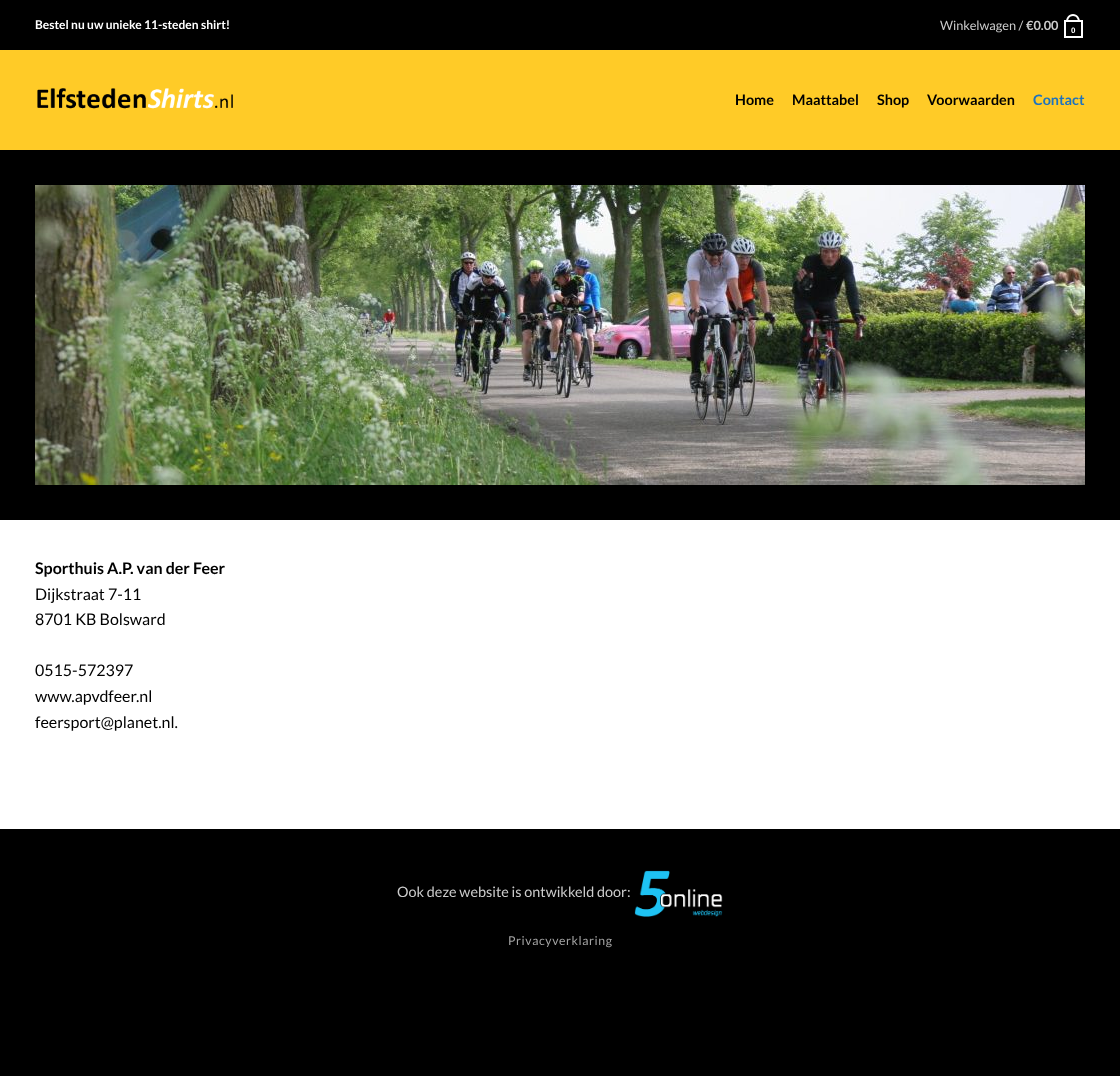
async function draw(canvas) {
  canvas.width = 1120
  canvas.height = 1076
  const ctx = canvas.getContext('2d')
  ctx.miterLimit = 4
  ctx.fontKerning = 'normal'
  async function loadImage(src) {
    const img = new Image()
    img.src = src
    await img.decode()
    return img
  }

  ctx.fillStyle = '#000'
  ctx.fillRect(0, 0, 1120, 1076)
  ctx.fillStyle = '#fff'
  ctx.fillRect(0, 520, 1120, 309)
  ctx.font = 'bold 12px Lato'
  ctx.fillText('Bestel nu uw unieke 11-steden shirt!', 35, 29)
  ctx.font = '12.75px Lato'
  ctx.fillStyle = '#ccc'
  ctx.fillText('Winkelwagen /', 940, 30)
  ctx.font = 'bold 12.75px Lato'
  ctx.fillText('€0.00', 1026, 30)
  ctx.strokeStyle = '#fff'
  ctx.lineWidth = 2
  ctx.strokeRect(1065, 21, 17, 16)
  ctx.fillStyle = '#fff'
  ctx.beginPath()
  ctx.moveTo(1073, 14)
  ctx.bezierCurveTo(1077.5, 14, 1080, 18, 1080, 22)
  ctx.lineTo(1066, 22)
  ctx.bezierCurveTo(1066, 18, 1068.5, 14, 1073, 14)
  ctx.closePath()
  ctx.moveTo(1073, 16)
  ctx.bezierCurveTo(1076.5, 16, 1078, 19, 1078, 22)
  ctx.lineTo(1068, 22)
  ctx.bezierCurveTo(1068, 19, 1069.5, 16, 1073, 16)
  ctx.closePath()
  ctx.fill('evenodd')
  ctx.font = 'bold 8px Liberation Sans'
  ctx.fillText('0', 1071, 33)
  ctx.fillStyle = '#ffcb27'
  ctx.fillRect(0, 50, 1120, 100)
  ctx.drawImage(await loadImage('image0.png'), 37, 88, 196, 21)
  ctx.font = 'bold 14.4px Lato'
  ctx.fillStyle = '#000'
  ctx.fillText('Home', 735, 105)
  ctx.fillText('Maattabel', 792, 105)
  ctx.fillText('Shop', 877, 105)
  ctx.fillText('Voorwaarden', 927, 105)
  ctx.fillStyle = '#1e73be'
  ctx.fillText('Contact', 1033, 105)
  ctx.drawImage(await loadImage('image1.png'), 35, 185, 1050, 300)
  ctx.font = 'bold 16px Lato'
  ctx.fillStyle = '#000'
  ctx.fillText('Sporthuis A.P. van der Feer', 35, 574)
  ctx.font = '16px Lato'
  ctx.fillText('Dijkstraat 7-11', 35, 600)
  ctx.fillText('8701 KB Bolsward', 35, 625)
  ctx.fillText('0515-572397', 35, 676)
  ctx.fillText('www.apvdfeer.nl', 35, 702)
  ctx.fillText('feersport@planet.nl.', 35, 728)
  ctx.font = '14.4px Lato'
  ctx.fillStyle = '#ccc'
  ctx.fillText('Ook deze website is ontwikkeld door:', 397, 897)
  ctx.drawImage(await loadImage('image2.png'), 634, 870, 89, 47)
  ctx.letterSpacing = '0.6px'
  ctx.font = '12.25px Lato'
  ctx.fillStyle = '#a3a3a3'
  ctx.fillText('Privacyverklaring', 508, 945)
}

draw(document.querySelector('canvas'))
